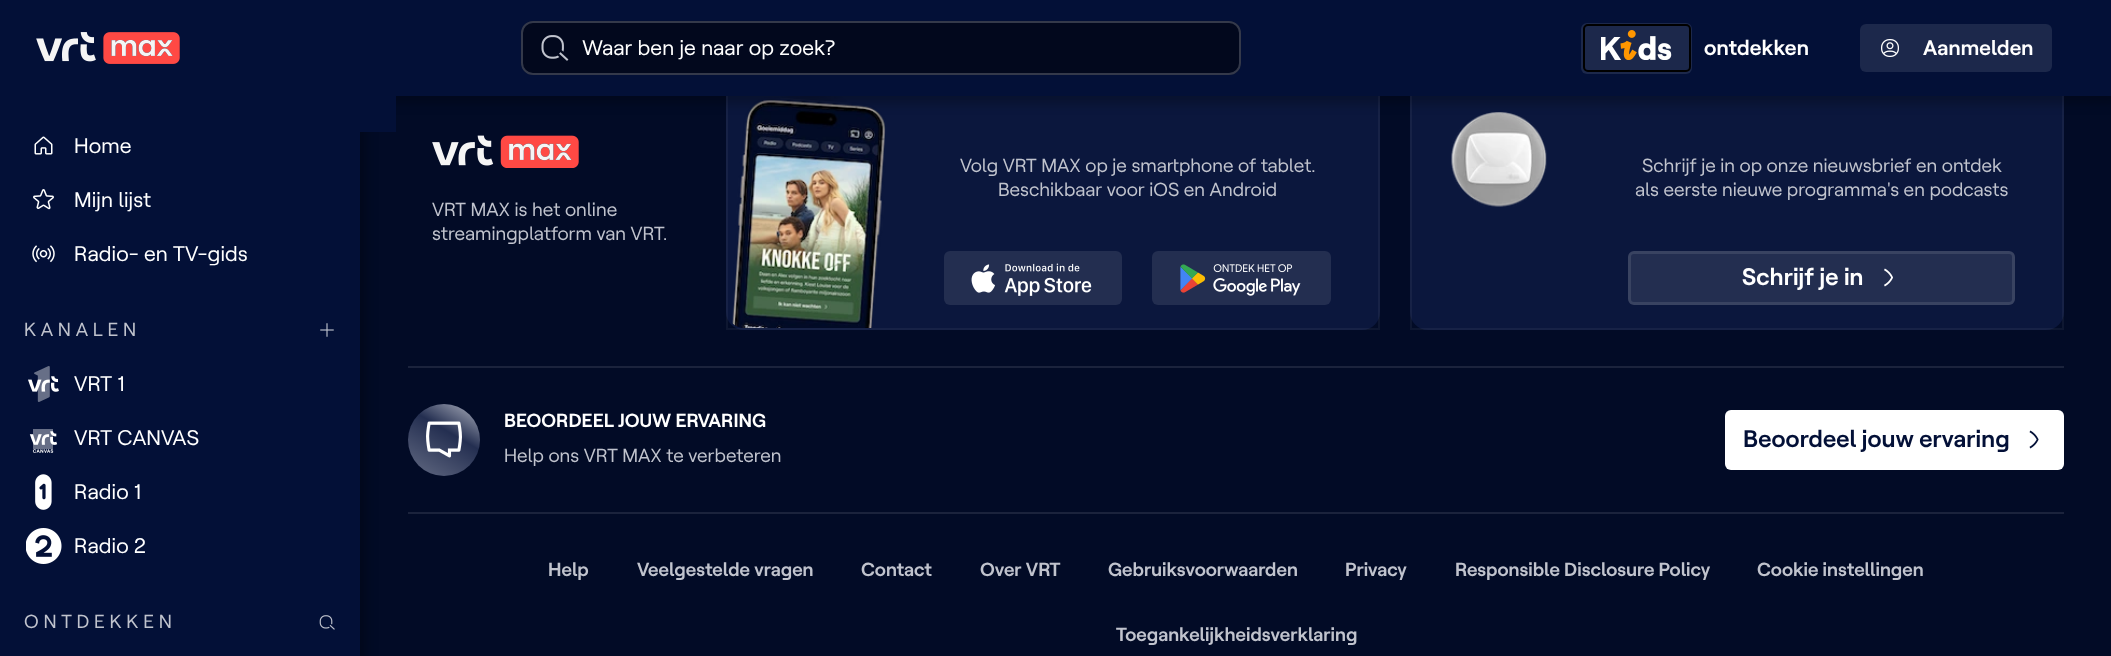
async function draw(canvas) {
  canvas.width = 2111
  canvas.height = 656
  const ctx = canvas.getContext('2d')
  ctx.miterLimit = 4
  ctx.fontKerning = 'normal'
  async function loadImage(src) {
    const img = new Image()
    img.src = src
    await img.decode()
    return img
  }
  let gradient

  ctx.fillStyle = '#020b26'
  ctx.fillRect(0, 0, 2111, 656)
  ctx.fillStyle = '#0b173d'
  ctx.beginPath()
  ctx.roundRect(726, 59, 654, 271, 18)
  ctx.fill()
  ctx.strokeStyle = '#ffffff0d'
  ctx.lineWidth = 2
  ctx.strokeRect(727, 60, 652, 269)
  ctx.drawImage(await loadImage('image14.png'), 732, 96, 154, 232)
  ctx.beginPath()
  ctx.roundRect(1410, 59, 654, 271, 18)
  ctx.fill()
  ctx.strokeRect(1411, 60, 652, 269)
  ctx.drawImage(await loadImage('image17.png'), 1451, 112, 96, 95)
  ctx.fillStyle = '#0000004d'
  ctx.filter = 'blur(6px)'
  ctx.beginPath()
  ctx.rect(6, 90, 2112, 12)
  ctx.fill()
  ctx.filter = 'none'
  ctx.filter = 'blur(6px)'
  ctx.beginPath()
  ctx.rect(6, 102, 360, 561)
  ctx.fill()
  ctx.filter = 'none'
  ctx.fillStyle = '#031037'
  ctx.fillRect(0, 0, 2111, 96)
  ctx.drawImage(await loadImage('image0.png'), 36, 32, 144, 32)
  ctx.fillStyle = '#02081d'
  ctx.beginPath()
  ctx.roundRect(521, 21, 720, 54, 12)
  ctx.fill()
  ctx.beginPath()
  ctx.roundRect(522, 22, 718, 52, 11)
  ctx.strokeStyle = '#ffffff33'
  ctx.stroke()
  ctx.drawImage(await loadImage('image1.png'), 541, 35, 28, 26)
  ctx.letterSpacing = '0.1px'
  ctx.font = '21.25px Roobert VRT'
  ctx.fillStyle = '#fff'
  ctx.fillText('Waar ben je naar op zoek?', 582, 55)
  ctx.fillStyle = '#1c284b'
  ctx.beginPath()
  ctx.roundRect(1581, 23, 111, 51, 6)
  ctx.fill()
  ctx.beginPath()
  ctx.roundRect(1584, 25, 106, 46, 4)
  ctx.strokeStyle = '#000'
  ctx.stroke()
  ctx.drawImage(await loadImage('image2.png'), 1601, 30, 71, 30)
  ctx.font = '600 21.25px Roobert VRT'
  ctx.fillStyle = '#fff'
  ctx.fillText('ontdekken', 1704, 55)
  ctx.fillStyle = '#1c284b'
  ctx.beginPath()
  ctx.roundRect(1860, 24, 192, 48, 6)
  ctx.fill()
  ctx.drawImage(await loadImage('image3.png'), 1881, 39, 18, 18)
  ctx.font = '600 21px Roobert VRT'
  ctx.fillStyle = '#fff'
  ctx.fillText('Aanmelden', 1923, 55)
  ctx.fillStyle = '#031037'
  ctx.fillRect(0, 96, 360, 560)
  ctx.fillRect(360, 96, 36, 36)
  ctx.drawImage(await loadImage('image4.png'), 34, 136, 19, 19)
  ctx.font = '21.25px Roobert VRT'
  ctx.fillStyle = '#fff'
  ctx.fillText('Home', 74, 153)
  ctx.drawImage(await loadImage('image5.png'), 33, 189, 21, 21)
  ctx.fillText('Mijn lijst', 74, 207)
  ctx.drawImage(await loadImage('image6.png'), 32, 245, 23, 18)
  ctx.fillText('Radio- en TV-gids', 74, 261)
  ctx.letterSpacing = '4.75px'
  ctx.font = '19px Roobert VRT'
  ctx.fillStyle = '#c0c3cd'
  ctx.fillText('KANALEN', 24, 336)
  ctx.drawImage(await loadImage('image7.png'), 320, 323, 14, 14)
  ctx.drawImage(await loadImage('image8.png'), 28, 366, 31, 36)
  ctx.letterSpacing = '0.1px'
  ctx.font = '21.25px Roobert VRT'
  ctx.fillStyle = '#fff'
  ctx.fillText('VRT 1', 74, 391)
  ctx.drawImage(await loadImage('image9.png'), 29, 429, 29, 24)
  ctx.fillText('VRT CANVAS', 74, 445)
  ctx.drawImage(await loadImage('image10.png'), 35, 474, 17, 36)
  ctx.fillText('Radio 1', 74, 499)
  ctx.drawImage(await loadImage('image11.png'), 26, 528, 36, 36)
  ctx.fillText('Radio 2', 74, 553)
  ctx.letterSpacing = '4.75px'
  ctx.font = '19px Roobert VRT'
  ctx.fillStyle = '#c0c3cd'
  ctx.fillText('ONTDEKKEN', 24, 628)
  ctx.drawImage(await loadImage('image12.png'), 319, 615, 16, 15)
  ctx.drawImage(await loadImage('image13.png'), 432, 135, 147, 33)
  ctx.letterSpacing = '0px'
  ctx.fillText('VRT MAX is het online', 432, 216)
  ctx.fillText('streamingplatform van VRT.', 432, 240)
  ctx.fillText('Volg VRT MAX op je smartphone of tablet.', 960, 172)
  ctx.fillText('Beschikbaar voor iOS en Android', 998, 196)
  ctx.fillStyle = '#232e50'
  ctx.beginPath()
  ctx.roundRect(944, 251, 178, 54, 6)
  ctx.fill()
  ctx.drawImage(await loadImage('image15.png'), 971, 263, 121, 33)
  ctx.beginPath()
  ctx.roundRect(1152, 251, 179, 54, 6)
  ctx.fill()
  ctx.drawImage(await loadImage('image16.png'), 1180, 264, 121, 32)
  ctx.fillStyle = '#c0c3cd'
  ctx.fillText('Schrijf je in op onze nieuwsbrief en ontdek', 1642, 172)
  ctx.fillText('als eerste nieuwe programma\'s en podcasts', 1635, 196)
  ctx.fillStyle = '#232e50'
  ctx.beginPath()
  ctx.roundRect(1628, 251, 387, 54, 6)
  ctx.fill()
  ctx.beginPath()
  ctx.roundRect(1629.5, 252.5, 384, 51, 4.5)
  ctx.strokeStyle = '#ffffff1a'
  ctx.lineWidth = 3
  ctx.stroke()
  ctx.letterSpacing = '0.1px'
  ctx.font = '600 24px Roobert VRT'
  ctx.fillStyle = '#fff'
  ctx.fillText('Schrijf je in', 1742, 285)
  ctx.drawImage(await loadImage('image18.png'), 1884, 268, 9, 19)
  ctx.fillStyle = '#1b233c'
  ctx.fillRect(408, 366, 1656, 2)
  ctx.fillStyle = '#0b173d'
  ctx.beginPath()
  ctx.arc(444, 440, 36, 0, 2 * Math.PI)
  ctx.fill()
  ctx.drawImage(await loadImage('image19.png'), 426, 421, 36, 37)
  gradient = ctx.createLinearGradient(469, 397, 419, 482)
  gradient.addColorStop(0.13, '#ffffff80')
  gradient.addColorStop(0.41, '#ffffff1a')
  gradient.addColorStop(0.87, '#ffffff4d')
  ctx.fillStyle = gradient
  ctx.beginPath()
  ctx.arc(444, 440, 36, 0, 2 * Math.PI)
  ctx.fill()
  ctx.letterSpacing = '0px'
  ctx.font = '600 19px Roobert VRT'
  ctx.fillStyle = '#fff'
  ctx.fillText('BEOORDEEL JOUW ERVARING', 504, 427)
  ctx.font = '19px Roobert VRT'
  ctx.fillStyle = '#c0c3cd'
  ctx.fillText('Help ons VRT MAX te verbeteren', 504, 462)
  ctx.fillStyle = '#fff'
  ctx.beginPath()
  ctx.roundRect(1725, 410, 339, 60, 6)
  ctx.fill()
  ctx.letterSpacing = '0.1px'
  ctx.font = '600 24px Roobert VRT'
  ctx.fillStyle = '#031037'
  ctx.fillText('Beoordeel jouw ervaring', 1743, 447)
  ctx.drawImage(await loadImage('image20.png'), 2029, 430, 10, 19)
  ctx.fillStyle = '#1b233c'
  ctx.fillRect(408, 512, 1656, 2)
  ctx.letterSpacing = '0px'
  ctx.font = '600 19px Roobert VRT'
  ctx.fillStyle = '#c0c3cd'
  ctx.fillText('Help', 548, 576)
  ctx.fillText('Veelgestelde vragen', 637, 576)
  ctx.fillText('Contact', 861, 576)
  ctx.fillText('Over VRT', 980, 576)
  ctx.fillText('Gebruiksvoorwaarden', 1108, 576)
  ctx.fillText('Privacy', 1345, 576)
  ctx.fillText('Responsible Disclosure Policy', 1455, 576)
  ctx.fillText('Cookie instellingen', 1757, 576)
  ctx.fillText('Toegankelijkheidsverklaring', 1116, 641)
}

draw(document.querySelector('canvas'))
